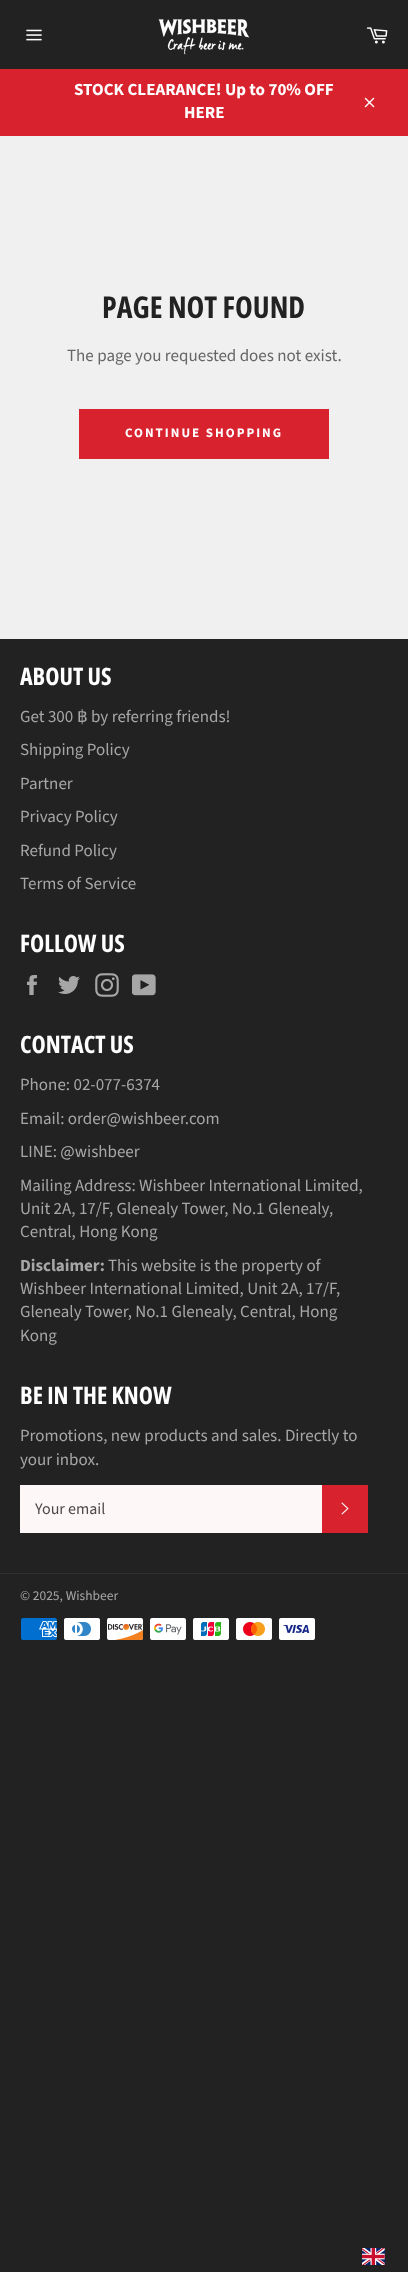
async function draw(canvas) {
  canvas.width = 408
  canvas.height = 2272
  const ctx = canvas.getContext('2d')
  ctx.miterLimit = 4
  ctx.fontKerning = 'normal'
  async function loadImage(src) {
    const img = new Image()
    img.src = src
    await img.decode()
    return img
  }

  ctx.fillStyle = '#222'
  ctx.fillRect(0, 0, 408, 2272)
  ctx.fillStyle = '#f0f0f0'
  ctx.fillRect(0, 136, 408, 503)
  ctx.drawImage(await loadImage('image0.png'), 26, 29, 16, 12)
  ctx.drawImage(await loadImage('image1.png'), 158, 19, 92, 36)
  ctx.drawImage(await loadImage('image2.png'), 366, 27, 22, 17)
  ctx.fillStyle = '#d8232f'
  ctx.fillRect(0, 69, 408, 67)
  ctx.font = 'bold 17px Source Sans Pro'
  ctx.fillStyle = '#fff'
  ctx.fillText('STOCK CLEARANCE! Up to 70% OFF', 74, 95)
  ctx.fillText('HERE', 184, 118)
  ctx.drawImage(await loadImage('image3.png'), 364, 97, 11, 11)
  ctx.font = 'bold 30px Open Sans Condensed'
  ctx.fillStyle = '#222'
  ctx.fillText('PAGE NOT FOUND', 102, 318)
  ctx.font = '17px Source Sans Pro'
  ctx.fillStyle = '#666'
  ctx.fillText('The page you requested does not exist.', 67, 361)
  ctx.fillStyle = '#d8232f'
  ctx.fillRect(79, 409, 250, 50)
  ctx.letterSpacing = '2px'
  ctx.font = 'bold 13px Source Sans Pro'
  ctx.fillStyle = '#fff'
  ctx.fillText('CONTINUE SHOPPING', 125, 437)
  ctx.letterSpacing = '0px'
  ctx.font = 'bold 24px Open Sans Condensed'
  ctx.fillText('ABOUT US', 20, 685)
  ctx.font = '17px Source Sans Pro'
  ctx.fillStyle = '#a7a7a7'
  ctx.fillText('Get 300', 20, 722)
  ctx.font = '17px DejaVu Sans'
  ctx.fillText('฿', 77, 722)
  ctx.font = '17px Source Sans Pro'
  ctx.fillText('by referring friends!', 91, 722)
  ctx.fillText('Shipping Policy', 20, 755)
  ctx.fillText('Partner', 20, 789)
  ctx.fillText('Privacy Policy', 20, 822)
  ctx.fillText('Refund Policy', 20, 856)
  ctx.fillText('Terms of Service', 20, 889)
  ctx.font = 'bold 24px Open Sans Condensed'
  ctx.fillStyle = '#fff'
  ctx.fillText('FOLLOW US', 20, 952)
  ctx.drawImage(await loadImage('image4.png'), 27, 975, 10, 20)
  ctx.drawImage(await loadImage('image5.png'), 58, 976, 22, 18)
  ctx.drawImage(await loadImage('image6.png'), 95, 973, 24, 24)
  ctx.drawImage(await loadImage('image7.png'), 132, 974, 24, 22)
  ctx.fillText('CONTACT US', 20, 1053)
  ctx.font = '17px Source Sans Pro'
  ctx.fillStyle = '#a7a7a7'
  ctx.fillText('Phone: 02-077-6374', 20, 1090)
  ctx.fillText('Email: order@wishbeer.com', 20, 1124)
  ctx.fillText('LINE: @wishbeer', 20, 1157)
  ctx.fillText('Mailing Address: Wishbeer International Limited,', 20, 1191)
  ctx.fillText('Unit 2A, 17/F, Glenealy Tower, No.1 Glenealy,', 20, 1214)
  ctx.fillText('Central, Hong Kong', 20, 1237)
  ctx.font = 'bold 17px Source Sans Pro'
  ctx.fillText('Disclaimer:', 20, 1271)
  ctx.font = '17px Source Sans Pro'
  ctx.fillText('This website is the property of', 108, 1271)
  ctx.fillText('Wishbeer International Limited, Unit 2A, 17/F,', 20, 1294)
  ctx.fillText('Glenealy Tower, No.1 Glenealy, Central, Hong', 20, 1317)
  ctx.fillText('Kong', 20, 1341)
  ctx.font = 'bold 24px Open Sans Condensed'
  ctx.fillStyle = '#fff'
  ctx.fillText('BE IN THE KNOW', 20, 1404)
  ctx.font = '17px Source Sans Pro'
  ctx.fillStyle = '#a7a7a7'
  ctx.fillText('Promotions, new products and sales. Directly to', 20, 1441)
  ctx.fillText('your inbox.', 20, 1465)
  ctx.fillStyle = '#fdf7f7'
  ctx.fillRect(20, 1485, 302, 48)
  ctx.font = '16px Source Sans Pro'
  ctx.fillStyle = '#4c4a4a'
  ctx.fillText('Your email', 35, 1514)
  ctx.fillStyle = '#d8232f'
  ctx.fillRect(322, 1485, 46, 48)
  ctx.drawImage(await loadImage('image8.png'), 341, 1502, 8, 13)
  ctx.fillStyle = '#2f2f2f'
  ctx.fillRect(0, 1573, 408, 1)
  ctx.font = '13.5px Source Sans Pro'
  ctx.fillStyle = '#a7a7a7'
  ctx.fillText('© 2025, Wishbeer', 20, 1600)
  ctx.drawImage(await loadImage('image9.png'), 21, 1618, 36, 22)
  ctx.drawImage(await loadImage('image10.png'), 64, 1618, 36, 22)
  ctx.drawImage(await loadImage('image11.png'), 107, 1618, 36, 22)
  ctx.drawImage(await loadImage('image12.png'), 150, 1618, 36, 22)
  ctx.drawImage(await loadImage('image13.png'), 193, 1618, 36, 22)
  ctx.drawImage(await loadImage('image14.png'), 236, 1618, 36, 22)
  ctx.drawImage(await loadImage('image15.png'), 279, 1618, 36, 22)
  ctx.drawImage(await loadImage('image16.png'), 362, 2248, 23, 17)
}

draw(document.querySelector('canvas'))
